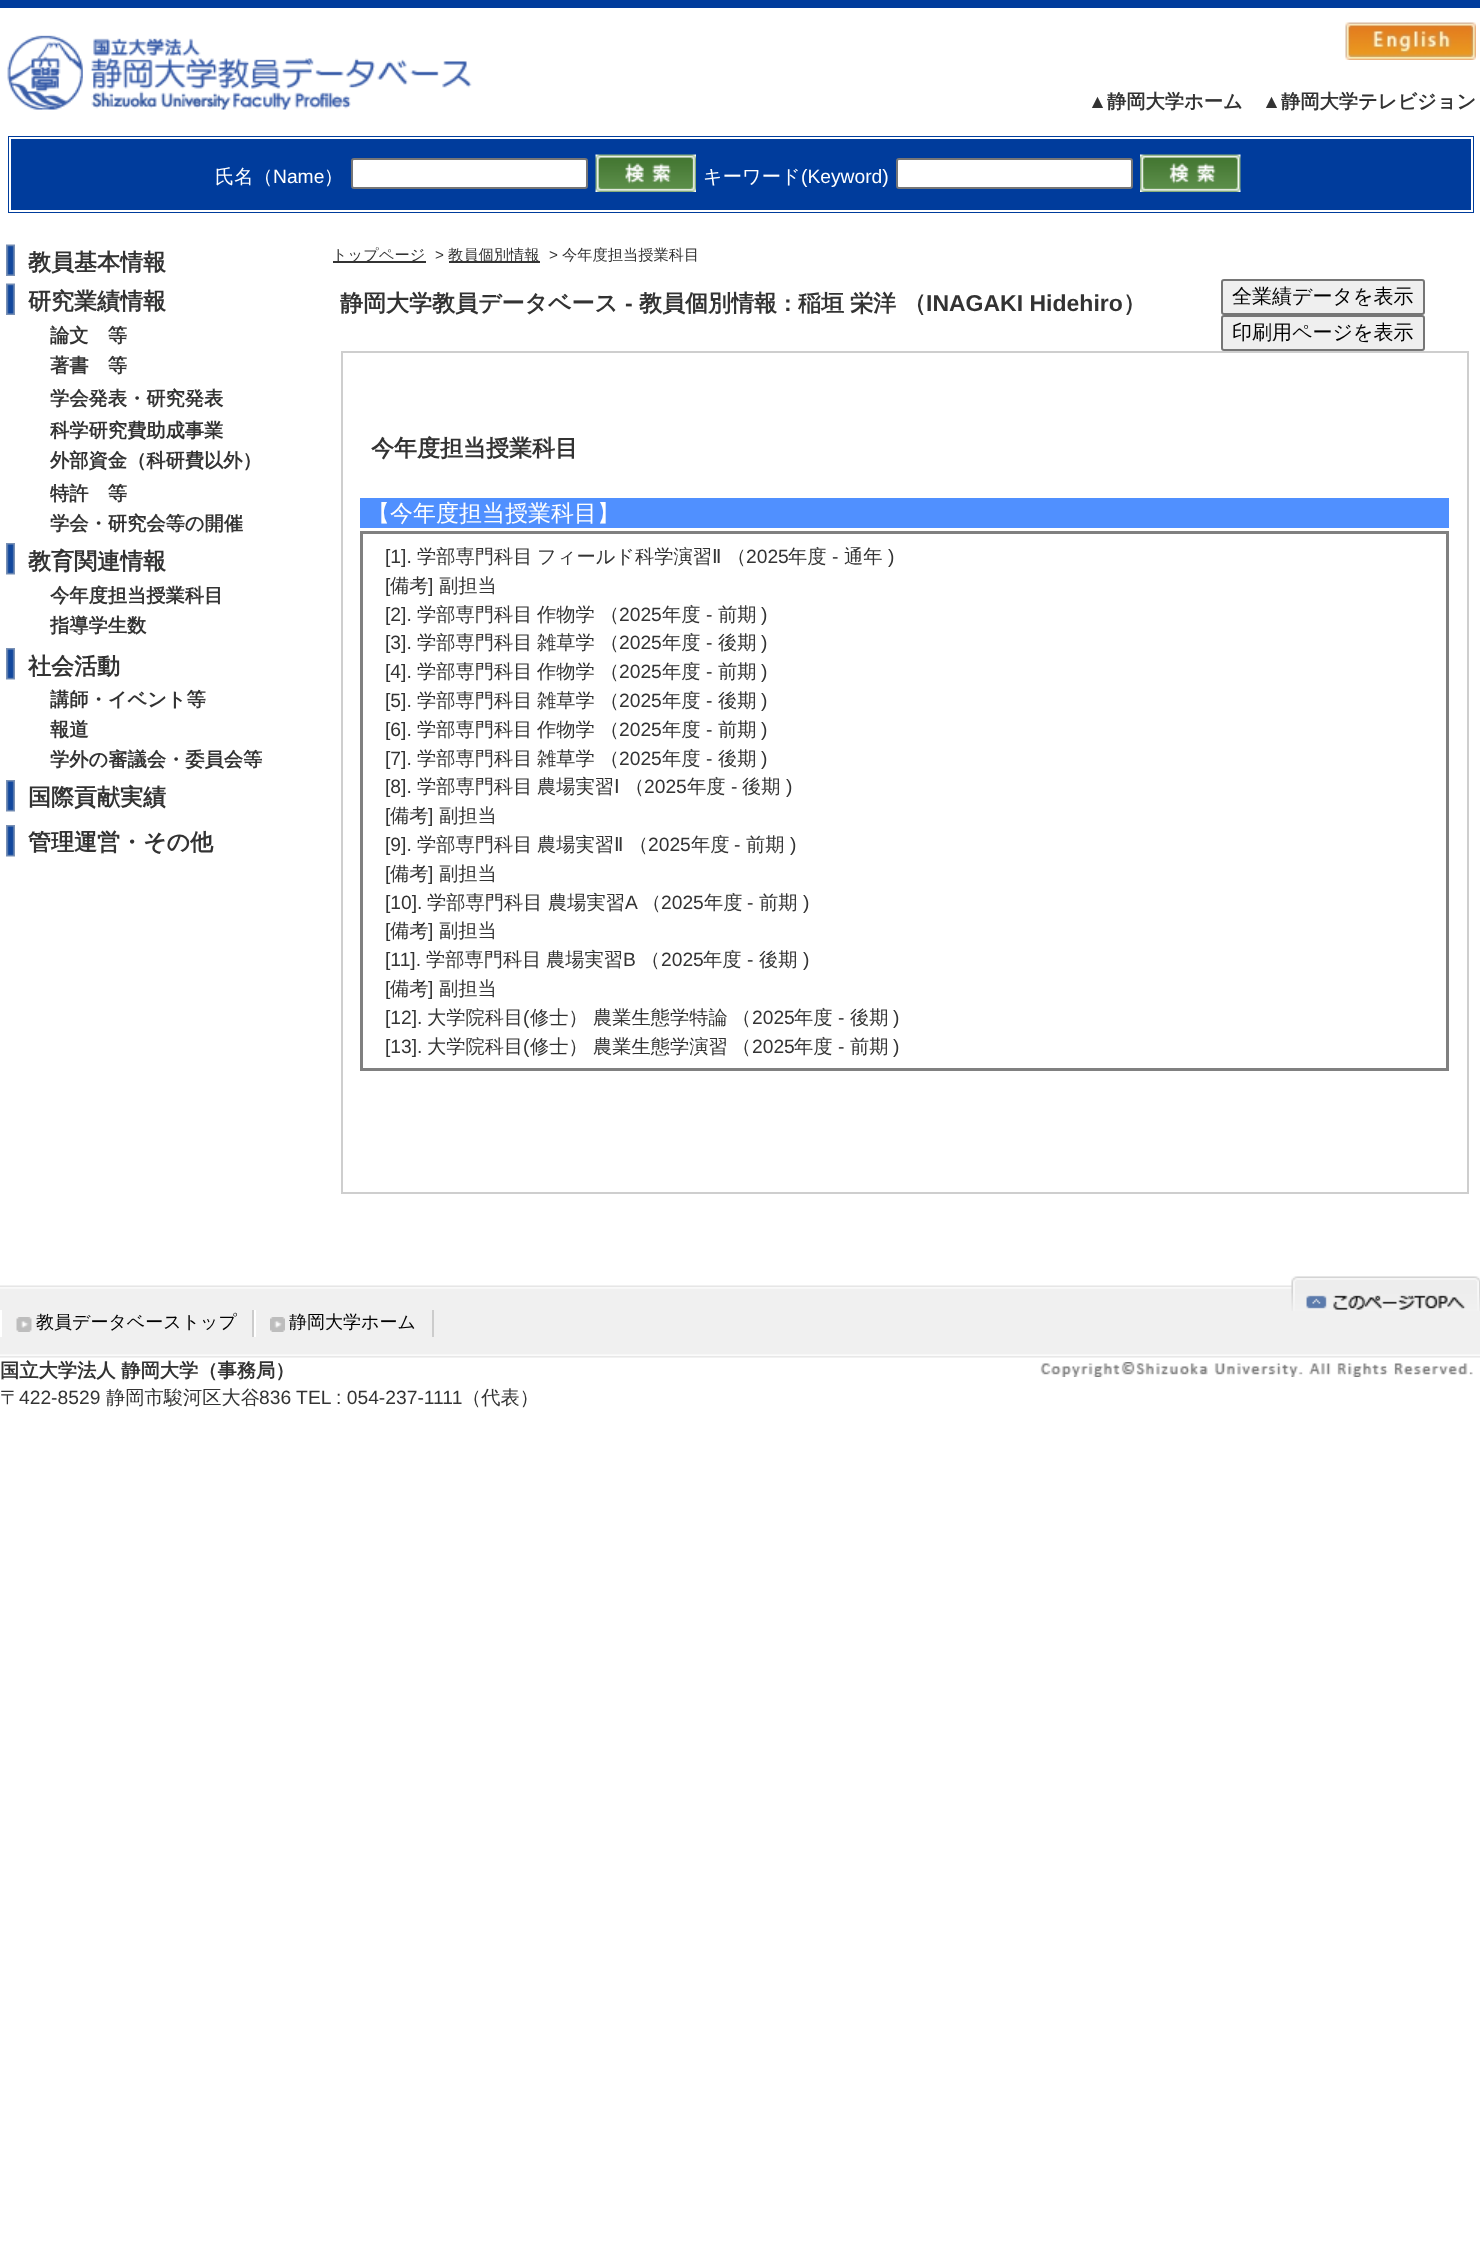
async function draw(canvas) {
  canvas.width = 1480
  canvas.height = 2250
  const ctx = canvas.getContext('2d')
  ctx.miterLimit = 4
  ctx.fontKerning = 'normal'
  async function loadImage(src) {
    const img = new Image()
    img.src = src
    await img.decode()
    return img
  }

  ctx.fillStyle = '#fff'
  ctx.fillRect(0, 0, 1480, 2250)
  ctx.fillStyle = '#003c9c'
  ctx.fillRect(0, 0, 1480, 8)
  ctx.drawImage(await loadImage('image0.png'), 7, 35, 465, 75)
  ctx.drawImage(await loadImage('image1.png'), 1345, 22, 131, 38)
  ctx.font = 'bold 19.25px Liberation Sans'
  ctx.fillStyle = '#333'
  ctx.fillText('▲', 1088, 108)
  ctx.font = 'bold 19.25px WenQuanYi Zen Hei'
  ctx.fillText('静岡大学ホーム', 1107, 108)
  ctx.font = 'bold 19.25px Liberation Sans'
  ctx.fillText('▲', 1262, 108)
  ctx.font = 'bold 19.25px WenQuanYi Zen Hei'
  ctx.fillText('静岡大学テレビジョン', 1281, 108)
  ctx.fillStyle = '#003c9c'
  ctx.fillRect(8, 136, 1466, 77)
  ctx.strokeStyle = '#fff'
  ctx.lineWidth = 2
  ctx.strokeRect(10, 138, 1462, 73)
  ctx.font = '500 19.25px WenQuanYi Zen Hei'
  ctx.fillStyle = '#fff'
  ctx.fillText('氏名（', 215, 183)
  ctx.font = '19.25px Liberation Sans'
  ctx.fillText('Name', 273, 183)
  ctx.font = '500 19.25px WenQuanYi Zen Hei'
  ctx.fillText('）', 324, 183)
  ctx.beginPath()
  ctx.roundRect(352, 159, 235, 29, 2)
  ctx.fill()
  ctx.strokeStyle = '#767676'
  ctx.stroke()
  ctx.drawImage(await loadImage('image2.png'), 595, 154, 101, 38)
  ctx.fillText('キーワード', 703, 183)
  ctx.font = '19.25px Liberation Sans'
  ctx.fillText('(Keyword)', 801, 183)
  ctx.beginPath()
  ctx.roundRect(897, 159, 235, 29, 2)
  ctx.fill()
  ctx.stroke()
  ctx.drawImage(await loadImage('image3.png'), 1140, 154, 101, 38)
  ctx.drawImage(await loadImage('image4.png'), 6, 244, 9, 32)
  ctx.font = 'bold 23px WenQuanYi Zen Hei'
  ctx.fillStyle = '#333'
  ctx.fillText('教員基本情報', 28, 270)
  ctx.drawImage(await loadImage('image4.png'), 6, 283, 9, 32)
  ctx.fillText('研究業績情報', 28, 309)
  ctx.font = 'bold 19.25px WenQuanYi Zen Hei'
  ctx.fillText('論文　等', 50, 342)
  ctx.fillText('著書　等', 50, 372)
  ctx.fillText('学会発表・研究発表', 50, 405)
  ctx.fillText('科学研究費助成事業', 50, 437)
  ctx.fillText('外部資金（科研費以外）', 50, 467)
  ctx.fillText('特許　等', 50, 500)
  ctx.fillText('学会・研究会等の開催', 50, 530)
  ctx.drawImage(await loadImage('image5.png'), 6, 543, 9, 32)
  ctx.font = 'bold 23px WenQuanYi Zen Hei'
  ctx.fillText('教育関連情報', 28, 569)
  ctx.font = 'bold 19.25px WenQuanYi Zen Hei'
  ctx.fillText('今年度担当授業科目', 50, 602)
  ctx.fillText('指導学生数', 50, 632)
  ctx.drawImage(await loadImage('image5.png'), 6, 648, 9, 32)
  ctx.font = 'bold 23px WenQuanYi Zen Hei'
  ctx.fillText('社会活動', 28, 674)
  ctx.font = 'bold 19.25px WenQuanYi Zen Hei'
  ctx.fillText('講師・イベント等', 50, 706)
  ctx.fillText('報道', 50, 736)
  ctx.fillText('学外の審議会・委員会等', 50, 766)
  ctx.drawImage(await loadImage('image5.png'), 6, 780, 9, 32)
  ctx.font = 'bold 23px WenQuanYi Zen Hei'
  ctx.fillText('国際貢献実績', 28, 805)
  ctx.drawImage(await loadImage('image5.png'), 6, 825, 9, 32)
  ctx.fillText('管理運営・その他', 28, 850)
  ctx.fillRect(333, 261, 93, 2)
  ctx.font = '500 15.25px WenQuanYi Zen Hei'
  ctx.fillText('トップページ', 332, 260)
  ctx.font = '15.25px Liberation Sans'
  ctx.fillText('>', 435, 260)
  ctx.fillRect(449, 261, 91, 2)
  ctx.font = '500 15.25px WenQuanYi Zen Hei'
  ctx.fillText('教員個別情報', 448, 260)
  ctx.font = '15.25px Liberation Sans'
  ctx.fillText('>', 549, 260)
  ctx.font = '500 15.25px WenQuanYi Zen Hei'
  ctx.fillText('今年度担当授業科目', 562, 260)
  ctx.font = 'bold 23px WenQuanYi Zen Hei'
  ctx.fillText('静岡大学教員データベース', 340, 311)
  ctx.font = 'bold 23px Liberation Sans'
  ctx.fillText('-', 625, 311)
  ctx.font = 'bold 23px WenQuanYi Zen Hei'
  ctx.fillText('教員個別情報', 639, 311)
  ctx.font = 'bold 23px Liberation Sans'
  ctx.fillText(':', 784, 311)
  ctx.font = 'bold 23px WenQuanYi Zen Hei'
  ctx.fillText('稲垣', 798, 311)
  ctx.fillText('栄洋', 850, 311)
  ctx.fillText('（', 903, 311)
  ctx.font = 'bold 23px Liberation Sans'
  ctx.fillText('INAGAKI Hidehiro', 926, 311)
  ctx.font = 'bold 23px WenQuanYi Zen Hei'
  ctx.fillText('）', 1123, 311)
  ctx.strokeStyle = '#cecece'
  ctx.strokeRect(342, 352, 1126, 841)
  ctx.fillText('今年度担当授業科目', 371, 456)
  ctx.fillStyle = '#5090ff'
  ctx.fillRect(360, 498, 1089, 30)
  ctx.font = '500 23px WenQuanYi Zen Hei'
  ctx.fillStyle = '#fff'
  ctx.fillText('【今年度担当授業科目】', 367, 521)
  ctx.strokeStyle = '#808080'
  ctx.lineWidth = 3
  ctx.strokeRect(361.5, 532.5, 1086, 537)
  ctx.font = '19.25px Liberation Sans'
  ctx.fillStyle = '#333'
  ctx.fillText('[1].', 385, 563)
  ctx.font = '500 19.25px WenQuanYi Zen Hei'
  ctx.fillText('学部専門科目', 417, 563)
  ctx.fillText('フィールド科学演習', 537, 563)
  ctx.font = '19.25px DejaVu Sans'
  ctx.fillText('Ⅱ', 712, 563)
  ctx.font = '500 19.25px WenQuanYi Zen Hei'
  ctx.fillText('（', 727, 563)
  ctx.font = '19.25px Liberation Sans'
  ctx.fillText('2025', 746, 563)
  ctx.font = '500 19.25px WenQuanYi Zen Hei'
  ctx.fillText('年度', 788, 563)
  ctx.font = '19.25px Liberation Sans'
  ctx.fillText('-', 832, 563)
  ctx.font = '500 19.25px WenQuanYi Zen Hei'
  ctx.fillText('通年', 844, 563)
  ctx.font = '19.25px Liberation Sans'
  ctx.fillText(')', 888, 563)
  ctx.fillText('[', 385, 592)
  ctx.font = '500 19.25px WenQuanYi Zen Hei'
  ctx.fillText('備考', 390, 592)
  ctx.font = '19.25px Liberation Sans'
  ctx.fillText(']', 428, 592)
  ctx.font = '500 19.25px WenQuanYi Zen Hei'
  ctx.fillText('副担当', 439, 592)
  ctx.font = '19.25px Liberation Sans'
  ctx.fillText('[2].', 385, 621)
  ctx.font = '500 19.25px WenQuanYi Zen Hei'
  ctx.fillText('学部専門科目', 417, 621)
  ctx.fillText('作物学', 537, 621)
  ctx.fillText('（', 600, 621)
  ctx.font = '19.25px Liberation Sans'
  ctx.fillText('2025', 619, 621)
  ctx.font = '500 19.25px WenQuanYi Zen Hei'
  ctx.fillText('年度', 662, 621)
  ctx.font = '19.25px Liberation Sans'
  ctx.fillText('-', 706, 621)
  ctx.font = '500 19.25px WenQuanYi Zen Hei'
  ctx.fillText('前期', 718, 621)
  ctx.font = '19.25px Liberation Sans'
  ctx.fillText(')', 761, 621)
  ctx.fillText('[3].', 385, 649)
  ctx.font = '500 19.25px WenQuanYi Zen Hei'
  ctx.fillText('学部専門科目', 417, 649)
  ctx.fillText('雑草学', 537, 649)
  ctx.fillText('（', 600, 649)
  ctx.font = '19.25px Liberation Sans'
  ctx.fillText('2025', 619, 649)
  ctx.font = '500 19.25px WenQuanYi Zen Hei'
  ctx.fillText('年度', 662, 649)
  ctx.font = '19.25px Liberation Sans'
  ctx.fillText('-', 706, 649)
  ctx.font = '500 19.25px WenQuanYi Zen Hei'
  ctx.fillText('後期', 718, 649)
  ctx.font = '19.25px Liberation Sans'
  ctx.fillText(')', 761, 649)
  ctx.fillText('[4].', 385, 678)
  ctx.font = '500 19.25px WenQuanYi Zen Hei'
  ctx.fillText('学部専門科目', 417, 678)
  ctx.fillText('作物学', 537, 678)
  ctx.fillText('（', 600, 678)
  ctx.font = '19.25px Liberation Sans'
  ctx.fillText('2025', 619, 678)
  ctx.font = '500 19.25px WenQuanYi Zen Hei'
  ctx.fillText('年度', 662, 678)
  ctx.font = '19.25px Liberation Sans'
  ctx.fillText('-', 706, 678)
  ctx.font = '500 19.25px WenQuanYi Zen Hei'
  ctx.fillText('前期', 718, 678)
  ctx.font = '19.25px Liberation Sans'
  ctx.fillText(')', 761, 678)
  ctx.fillText('[5].', 385, 707)
  ctx.font = '500 19.25px WenQuanYi Zen Hei'
  ctx.fillText('学部専門科目', 417, 707)
  ctx.fillText('雑草学', 537, 707)
  ctx.fillText('（', 600, 707)
  ctx.font = '19.25px Liberation Sans'
  ctx.fillText('2025', 619, 707)
  ctx.font = '500 19.25px WenQuanYi Zen Hei'
  ctx.fillText('年度', 662, 707)
  ctx.font = '19.25px Liberation Sans'
  ctx.fillText('-', 706, 707)
  ctx.font = '500 19.25px WenQuanYi Zen Hei'
  ctx.fillText('後期', 718, 707)
  ctx.font = '19.25px Liberation Sans'
  ctx.fillText(')', 761, 707)
  ctx.fillText('[6].', 385, 736)
  ctx.font = '500 19.25px WenQuanYi Zen Hei'
  ctx.fillText('学部専門科目', 417, 736)
  ctx.fillText('作物学', 537, 736)
  ctx.fillText('（', 600, 736)
  ctx.font = '19.25px Liberation Sans'
  ctx.fillText('2025', 619, 736)
  ctx.font = '500 19.25px WenQuanYi Zen Hei'
  ctx.fillText('年度', 662, 736)
  ctx.font = '19.25px Liberation Sans'
  ctx.fillText('-', 706, 736)
  ctx.font = '500 19.25px WenQuanYi Zen Hei'
  ctx.fillText('前期', 718, 736)
  ctx.font = '19.25px Liberation Sans'
  ctx.fillText(')', 761, 736)
  ctx.fillText('[7].', 385, 765)
  ctx.font = '500 19.25px WenQuanYi Zen Hei'
  ctx.fillText('学部専門科目', 417, 765)
  ctx.fillText('雑草学', 537, 765)
  ctx.fillText('（', 600, 765)
  ctx.font = '19.25px Liberation Sans'
  ctx.fillText('2025', 619, 765)
  ctx.font = '500 19.25px WenQuanYi Zen Hei'
  ctx.fillText('年度', 662, 765)
  ctx.font = '19.25px Liberation Sans'
  ctx.fillText('-', 706, 765)
  ctx.font = '500 19.25px WenQuanYi Zen Hei'
  ctx.fillText('後期', 718, 765)
  ctx.font = '19.25px Liberation Sans'
  ctx.fillText(')', 761, 765)
  ctx.fillText('[8].', 385, 793)
  ctx.font = '500 19.25px WenQuanYi Zen Hei'
  ctx.fillText('学部専門科目', 417, 793)
  ctx.fillText('農場実習', 537, 793)
  ctx.font = '19.25px DejaVu Sans'
  ctx.fillText('Ⅰ', 614, 793)
  ctx.font = '500 19.25px WenQuanYi Zen Hei'
  ctx.fillText('（', 625, 793)
  ctx.font = '19.25px Liberation Sans'
  ctx.fillText('2025', 644, 793)
  ctx.font = '500 19.25px WenQuanYi Zen Hei'
  ctx.fillText('年度', 687, 793)
  ctx.font = '19.25px Liberation Sans'
  ctx.fillText('-', 731, 793)
  ctx.font = '500 19.25px WenQuanYi Zen Hei'
  ctx.fillText('後期', 742, 793)
  ctx.font = '19.25px Liberation Sans'
  ctx.fillText(')', 786, 793)
  ctx.fillText('[', 385, 822)
  ctx.font = '500 19.25px WenQuanYi Zen Hei'
  ctx.fillText('備考', 390, 822)
  ctx.font = '19.25px Liberation Sans'
  ctx.fillText(']', 428, 822)
  ctx.font = '500 19.25px WenQuanYi Zen Hei'
  ctx.fillText('副担当', 439, 822)
  ctx.font = '19.25px Liberation Sans'
  ctx.fillText('[9].', 385, 851)
  ctx.font = '500 19.25px WenQuanYi Zen Hei'
  ctx.fillText('学部専門科目', 417, 851)
  ctx.fillText('農場実習', 537, 851)
  ctx.font = '19.25px DejaVu Sans'
  ctx.fillText('Ⅱ', 614, 851)
  ctx.font = '500 19.25px WenQuanYi Zen Hei'
  ctx.fillText('（', 629, 851)
  ctx.font = '19.25px Liberation Sans'
  ctx.fillText('2025', 648, 851)
  ctx.font = '500 19.25px WenQuanYi Zen Hei'
  ctx.fillText('年度', 691, 851)
  ctx.font = '19.25px Liberation Sans'
  ctx.fillText('-', 734, 851)
  ctx.font = '500 19.25px WenQuanYi Zen Hei'
  ctx.fillText('前期', 746, 851)
  ctx.font = '19.25px Liberation Sans'
  ctx.fillText(')', 790, 851)
  ctx.fillText('[', 385, 880)
  ctx.font = '500 19.25px WenQuanYi Zen Hei'
  ctx.fillText('備考', 390, 880)
  ctx.font = '19.25px Liberation Sans'
  ctx.fillText(']', 428, 880)
  ctx.font = '500 19.25px WenQuanYi Zen Hei'
  ctx.fillText('副担当', 439, 880)
  ctx.font = '19.25px Liberation Sans'
  ctx.fillText('[10].', 385, 909)
  ctx.font = '500 19.25px WenQuanYi Zen Hei'
  ctx.fillText('学部専門科目', 427, 909)
  ctx.fillText('農場実習', 548, 909)
  ctx.font = '19.25px Liberation Sans'
  ctx.fillText('A', 625, 909)
  ctx.font = '500 19.25px WenQuanYi Zen Hei'
  ctx.fillText('（', 642, 909)
  ctx.font = '19.25px Liberation Sans'
  ctx.fillText('2025', 661, 909)
  ctx.font = '500 19.25px WenQuanYi Zen Hei'
  ctx.fillText('年度', 704, 909)
  ctx.font = '19.25px Liberation Sans'
  ctx.fillText('-', 747, 909)
  ctx.font = '500 19.25px WenQuanYi Zen Hei'
  ctx.fillText('前期', 759, 909)
  ctx.font = '19.25px Liberation Sans'
  ctx.fillText(')', 803, 909)
  ctx.fillText('[', 385, 937)
  ctx.font = '500 19.25px WenQuanYi Zen Hei'
  ctx.fillText('備考', 390, 937)
  ctx.font = '19.25px Liberation Sans'
  ctx.fillText(']', 428, 937)
  ctx.font = '500 19.25px WenQuanYi Zen Hei'
  ctx.fillText('副担当', 439, 937)
  ctx.font = '19.25px Liberation Sans'
  ctx.fillText('[11].', 385, 966)
  ctx.font = '500 19.25px WenQuanYi Zen Hei'
  ctx.fillText('学部専門科目', 426, 966)
  ctx.fillText('農場実習', 546, 966)
  ctx.font = '19.25px Liberation Sans'
  ctx.fillText('B', 623, 966)
  ctx.font = '500 19.25px WenQuanYi Zen Hei'
  ctx.fillText('（', 641, 966)
  ctx.font = '19.25px Liberation Sans'
  ctx.fillText('2025', 661, 966)
  ctx.font = '500 19.25px WenQuanYi Zen Hei'
  ctx.fillText('年度', 703, 966)
  ctx.font = '19.25px Liberation Sans'
  ctx.fillText('-', 747, 966)
  ctx.font = '500 19.25px WenQuanYi Zen Hei'
  ctx.fillText('後期', 759, 966)
  ctx.font = '19.25px Liberation Sans'
  ctx.fillText(')', 803, 966)
  ctx.fillText('[', 385, 995)
  ctx.font = '500 19.25px WenQuanYi Zen Hei'
  ctx.fillText('備考', 390, 995)
  ctx.font = '19.25px Liberation Sans'
  ctx.fillText(']', 428, 995)
  ctx.font = '500 19.25px WenQuanYi Zen Hei'
  ctx.fillText('副担当', 439, 995)
  ctx.font = '19.25px Liberation Sans'
  ctx.fillText('[12].', 385, 1024)
  ctx.font = '500 19.25px WenQuanYi Zen Hei'
  ctx.fillText('大学院科目', 427, 1024)
  ctx.font = '19.25px Liberation Sans'
  ctx.fillText('(', 523, 1024)
  ctx.font = '500 19.25px WenQuanYi Zen Hei'
  ctx.fillText('修士）', 530, 1024)
  ctx.fillText('農業生態学特論', 593, 1024)
  ctx.fillText('（', 732, 1024)
  ctx.font = '19.25px Liberation Sans'
  ctx.fillText('2025', 752, 1024)
  ctx.font = '500 19.25px WenQuanYi Zen Hei'
  ctx.fillText('年度', 794, 1024)
  ctx.font = '19.25px Liberation Sans'
  ctx.fillText('-', 838, 1024)
  ctx.font = '500 19.25px WenQuanYi Zen Hei'
  ctx.fillText('後期', 850, 1024)
  ctx.font = '19.25px Liberation Sans'
  ctx.fillText(')', 893, 1024)
  ctx.fillText('[13].', 385, 1053)
  ctx.font = '500 19.25px WenQuanYi Zen Hei'
  ctx.fillText('大学院科目', 427, 1053)
  ctx.font = '19.25px Liberation Sans'
  ctx.fillText('(', 523, 1053)
  ctx.font = '500 19.25px WenQuanYi Zen Hei'
  ctx.fillText('修士）', 530, 1053)
  ctx.fillText('農業生態学演習', 593, 1053)
  ctx.fillText('（', 732, 1053)
  ctx.font = '19.25px Liberation Sans'
  ctx.fillText('2025', 752, 1053)
  ctx.font = '500 19.25px WenQuanYi Zen Hei'
  ctx.fillText('年度', 794, 1053)
  ctx.font = '19.25px Liberation Sans'
  ctx.fillText('-', 838, 1053)
  ctx.font = '500 19.25px WenQuanYi Zen Hei'
  ctx.fillText('前期', 850, 1053)
  ctx.font = '19.25px Liberation Sans'
  ctx.fillText(')', 893, 1053)
  ctx.fillStyle = '#efefef'
  ctx.beginPath()
  ctx.roundRect(1222, 280, 202, 34, 2)
  ctx.fill()
  ctx.strokeStyle = '#767676'
  ctx.lineWidth = 2
  ctx.stroke()
  ctx.font = '500 20px WenQuanYi Zen Hei'
  ctx.fillStyle = '#000'
  ctx.fillText('全業績データを表示', 1232, 303)
  ctx.fillStyle = '#efefef'
  ctx.beginPath()
  ctx.roundRect(1222, 316, 202, 34, 2)
  ctx.fill()
  ctx.stroke()
  ctx.fillStyle = '#000'
  ctx.fillText('印刷用ページを表示', 1232, 339)
  ctx.drawImage(await loadImage('image6.png'), 0, 1285, 1480, 73)
  ctx.drawImage(await loadImage('image7.png'), 1291, 1276, 189, 35)
  ctx.drawImage(await loadImage('image8.png'), 16, 1317, 16, 15)
  ctx.fillStyle = '#ccc'
  ctx.fillRect(252, 1310, 2, 27)
  ctx.fillStyle = '#fff'
  ctx.fillRect(0, 1310, 2, 27)
  ctx.font = '500 18px WenQuanYi Zen Hei'
  ctx.fillStyle = '#000'
  ctx.fillText('教員データベーストップ', 36, 1328)
  ctx.drawImage(await loadImage('image9.png'), 270, 1317, 15, 15)
  ctx.fillStyle = '#ccc'
  ctx.fillRect(432, 1310, 2, 27)
  ctx.fillStyle = '#fff'
  ctx.fillRect(254, 1310, 2, 27)
  ctx.fillStyle = '#000'
  ctx.fillText('静岡大学ホーム', 289, 1328)
  ctx.font = 'bold 19.25px WenQuanYi Zen Hei'
  ctx.fillStyle = '#333'
  ctx.fillText('国立大学法人 静岡大学（事務局）', 0, 1377)
  ctx.font = '500 19.25px WenQuanYi Zen Hei'
  ctx.fillText('〒', 0, 1404)
  ctx.font = '19.25px Liberation Sans'
  ctx.fillText('422-8529', 19, 1404)
  ctx.font = '500 19.25px WenQuanYi Zen Hei'
  ctx.fillText('静岡市駿河区大谷', 106, 1404)
  ctx.font = '19.25px Liberation Sans'
  ctx.fillText('836 TEL : 054-237-1111', 259, 1404)
  ctx.font = '500 19.25px WenQuanYi Zen Hei'
  ctx.fillText('（代表）', 462, 1404)
  ctx.drawImage(await loadImage('image10.png'), 1040, 1362, 433, 15)
}

draw(document.querySelector('canvas'))
